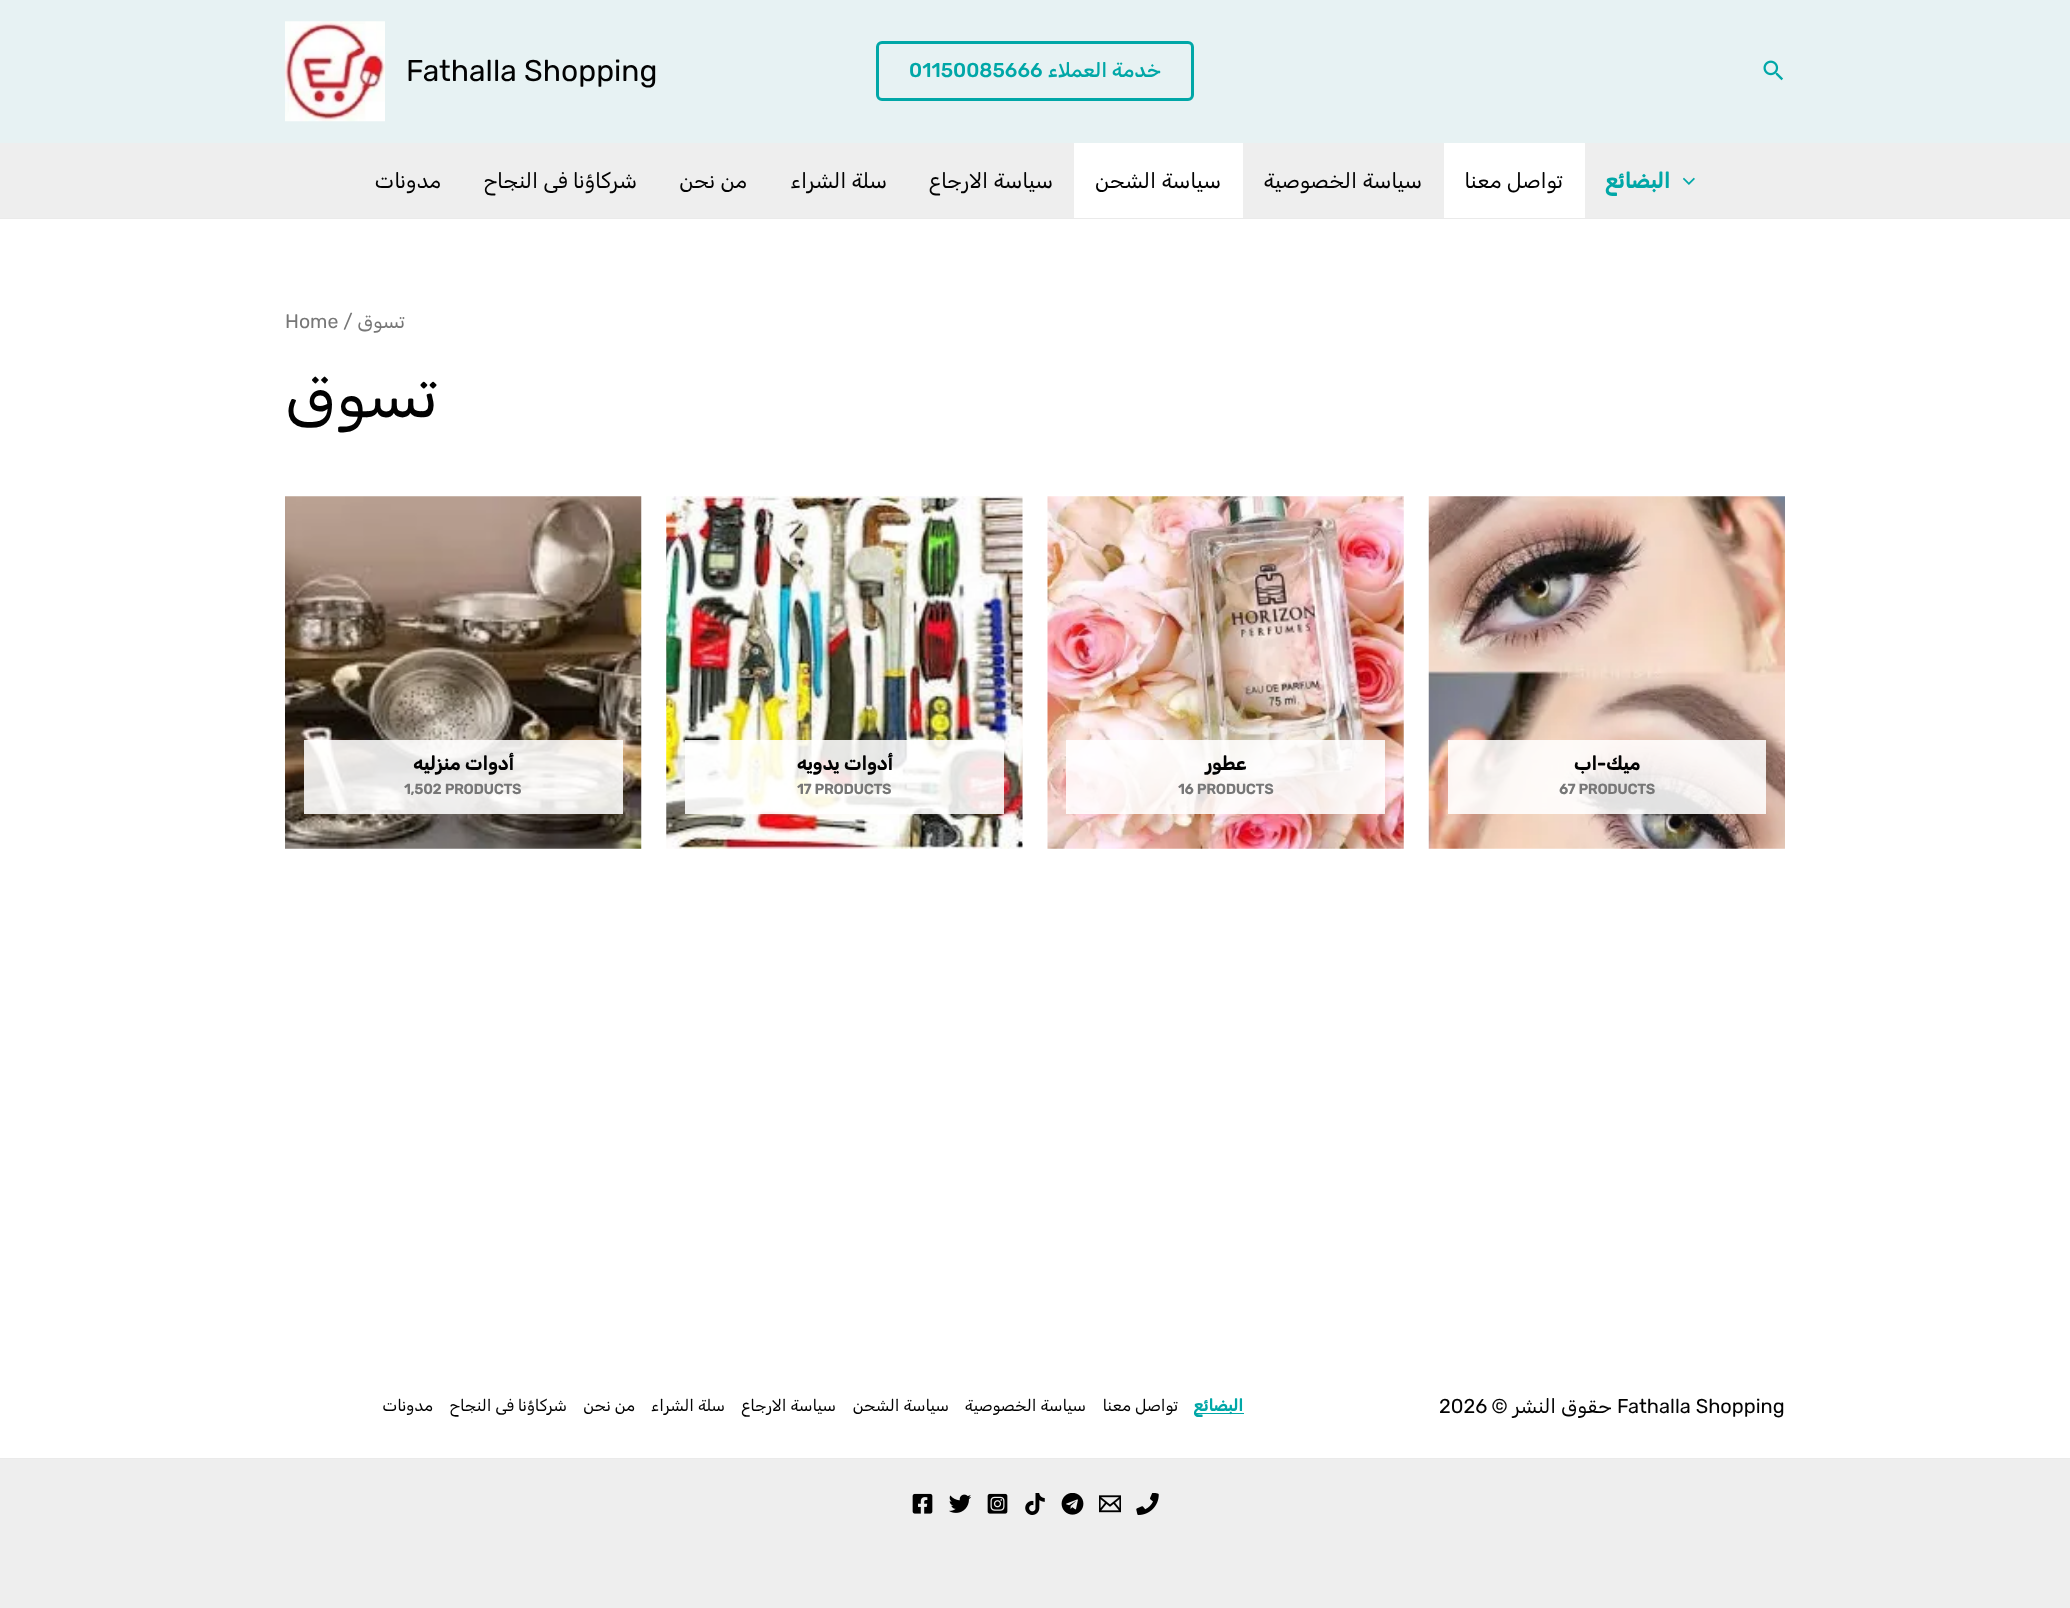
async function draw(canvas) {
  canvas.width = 2070
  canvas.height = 1608
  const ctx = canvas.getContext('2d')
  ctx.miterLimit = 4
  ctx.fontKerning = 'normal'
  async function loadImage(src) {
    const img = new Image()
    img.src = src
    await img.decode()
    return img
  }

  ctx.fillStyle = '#fff'
  ctx.fillRect(0, 0, 2070, 1608)
  ctx.fillStyle = '#e7f2f3'
  ctx.fillRect(0, 0, 2070, 143)
  ctx.drawImage(await loadImage('image0.png'), 1763, 60, 20, 21)
  ctx.beginPath()
  ctx.roundRect(877.5, 42.5, 315, 57, 4.5)
  ctx.strokeStyle = '#00a7a7'
  ctx.lineWidth = 3
  ctx.stroke()
  ctx.direction = 'rtl'
  ctx.font = '500 20px Rubik'
  ctx.fillStyle = '#00a7a7'
  ctx.fillText('خدمة العملاء', 1161, 77)
  ctx.direction = 'ltr'
  ctx.fillText('01150085666', 909, 77)
  ctx.font = '30px Rubik'
  ctx.fillStyle = '#020202'
  ctx.fillText('Fathalla Shopping', 406, 81)
  ctx.drawImage(await loadImage('image1.png'), 285, 21, 100, 101)
  ctx.fillStyle = '#eee'
  ctx.fillRect(0, 143, 2070, 75)
  ctx.fillStyle = '#eaeaea'
  ctx.fillRect(0, 218, 2070, 1)
  ctx.drawImage(await loadImage('image2.png'), 1683, 177, 12, 8)
  ctx.direction = 'rtl'
  ctx.font = 'bold 21.25px Rubik'
  ctx.fillStyle = '#00a7a7'
  ctx.fillText('البضائع', 1670, 188)
  ctx.fillStyle = '#fff'
  ctx.fillRect(1444, 143, 141, 75)
  ctx.font = '21.25px Rubik'
  ctx.fillStyle = '#020202'
  ctx.fillText('تواصل معنا', 1563, 188)
  ctx.fillText('سياسة الخصوصية', 1422, 188)
  ctx.fillStyle = '#fff'
  ctx.fillRect(1074, 143, 169, 75)
  ctx.fillStyle = '#020202'
  ctx.fillText('سياسة الشحن', 1221, 188)
  ctx.fillText('سياسة الارجاع', 1053, 188)
  ctx.fillText('سلة الشراء', 887, 188)
  ctx.fillText('من نحن', 747, 188)
  ctx.fillText('شركاؤنا فى النجاح', 637, 188)
  ctx.fillText('مدونات', 441, 188)
  ctx.font = '19.5px Rubik'
  ctx.fillStyle = '#777'
  ctx.fillText('تسوق', 405, 328)
  ctx.direction = 'ltr'
  ctx.fillText('Home /', 285, 328)
  ctx.direction = 'rtl'
  ctx.font = '62.5px Rubik'
  ctx.fillStyle = '#020202'
  ctx.fillText('تسوق', 438, 417)
  ctx.drawImage(await loadImage('image3.png'), 1428, 496, 357, 353)
  ctx.fillStyle = '#ffffffe0'
  ctx.fillRect(1448, 740, 318, 74)
  ctx.font = 'bold 19px Rubik'
  ctx.fillStyle = '#020202'
  ctx.fillText('ميك-اب', 1640, 770)
  ctx.direction = 'ltr'
  ctx.font = 'bold 14.25px Rubik'
  ctx.fillStyle = '#777'
  ctx.fillText('67 PRODUCTS', 1559, 794)
  ctx.drawImage(await loadImage('image4.png'), 1047, 496, 357, 353)
  ctx.fillStyle = '#ffffffe0'
  ctx.fillRect(1066, 740, 319, 74)
  ctx.direction = 'rtl'
  ctx.font = 'bold 19px Rubik'
  ctx.fillStyle = '#020202'
  ctx.fillText('عطور', 1246, 770)
  ctx.direction = 'ltr'
  ctx.font = 'bold 14.25px Rubik'
  ctx.fillStyle = '#777'
  ctx.fillText('16 PRODUCTS', 1178, 794)
  ctx.drawImage(await loadImage('image5.png'), 666, 496, 357, 353)
  ctx.fillStyle = '#ffffffe0'
  ctx.fillRect(685, 740, 319, 74)
  ctx.direction = 'rtl'
  ctx.font = 'bold 19px Rubik'
  ctx.fillStyle = '#020202'
  ctx.fillText('أدوات يدويه', 893, 770)
  ctx.direction = 'ltr'
  ctx.font = 'bold 14.25px Rubik'
  ctx.fillStyle = '#777'
  ctx.fillText('17 PRODUCTS', 797, 794)
  ctx.drawImage(await loadImage('image6.png'), 285, 496, 357, 353)
  ctx.fillStyle = '#ffffffe0'
  ctx.fillRect(304, 740, 319, 74)
  ctx.direction = 'rtl'
  ctx.font = 'bold 19px Rubik'
  ctx.fillStyle = '#020202'
  ctx.fillText('أدوات منزليه', 514, 770)
  ctx.direction = 'ltr'
  ctx.font = 'bold 14.25px Rubik'
  ctx.fillStyle = '#777'
  ctx.fillText('1,502 PRODUCTS', 404, 794)
  ctx.font = '20px Rubik'
  ctx.fillStyle = '#020202'
  ctx.fillText('Fathalla Shopping', 1617, 1413)
  ctx.direction = 'rtl'
  ctx.fillText('حقوق النشر ©', 1612, 1413)
  ctx.direction = 'ltr'
  ctx.fillText('2026', 1439, 1413)
  ctx.fillStyle = '#00a7a7'
  ctx.fillRect(1194, 1413, 50, 1)
  ctx.direction = 'rtl'
  ctx.font = 'bold 16.25px Rubik'
  ctx.fillText('البضائع', 1243, 1411)
  ctx.font = '16.25px Rubik'
  ctx.fillStyle = '#020202'
  ctx.fillText('تواصل معنا', 1178, 1411)
  ctx.fillText('سياسة الخصوصية', 1086, 1411)
  ctx.fillText('سياسة الشحن', 949, 1411)
  ctx.fillText('سياسة الارجاع', 836, 1411)
  ctx.fillText('سلة الشراء', 725, 1411)
  ctx.fillText('من نحن', 635, 1411)
  ctx.fillText('شركاؤنا فى النجاح', 567, 1411)
  ctx.fillText('مدونات', 433, 1411)
  ctx.fillStyle = '#eee'
  ctx.fillRect(0, 1459, 2070, 149)
  ctx.fillStyle = '#eaeaea'
  ctx.fillRect(0, 1458, 2070, 1)
  ctx.drawImage(await loadImage('image7.png'), 1136, 1493, 23, 22)
  ctx.drawImage(await loadImage('image8.png'), 1099, 1495, 22, 18)
  ctx.drawImage(await loadImage('image9.png'), 1061, 1493, 23, 22)
  ctx.drawImage(await loadImage('image10.png'), 1025, 1493, 20, 22)
  ctx.drawImage(await loadImage('image11.png'), 987, 1493, 21, 21)
  ctx.drawImage(await loadImage('image12.png'), 949, 1494, 22, 19)
  ctx.drawImage(await loadImage('image13.png'), 912, 1493, 21, 21)
}

draw(document.querySelector('canvas'))
